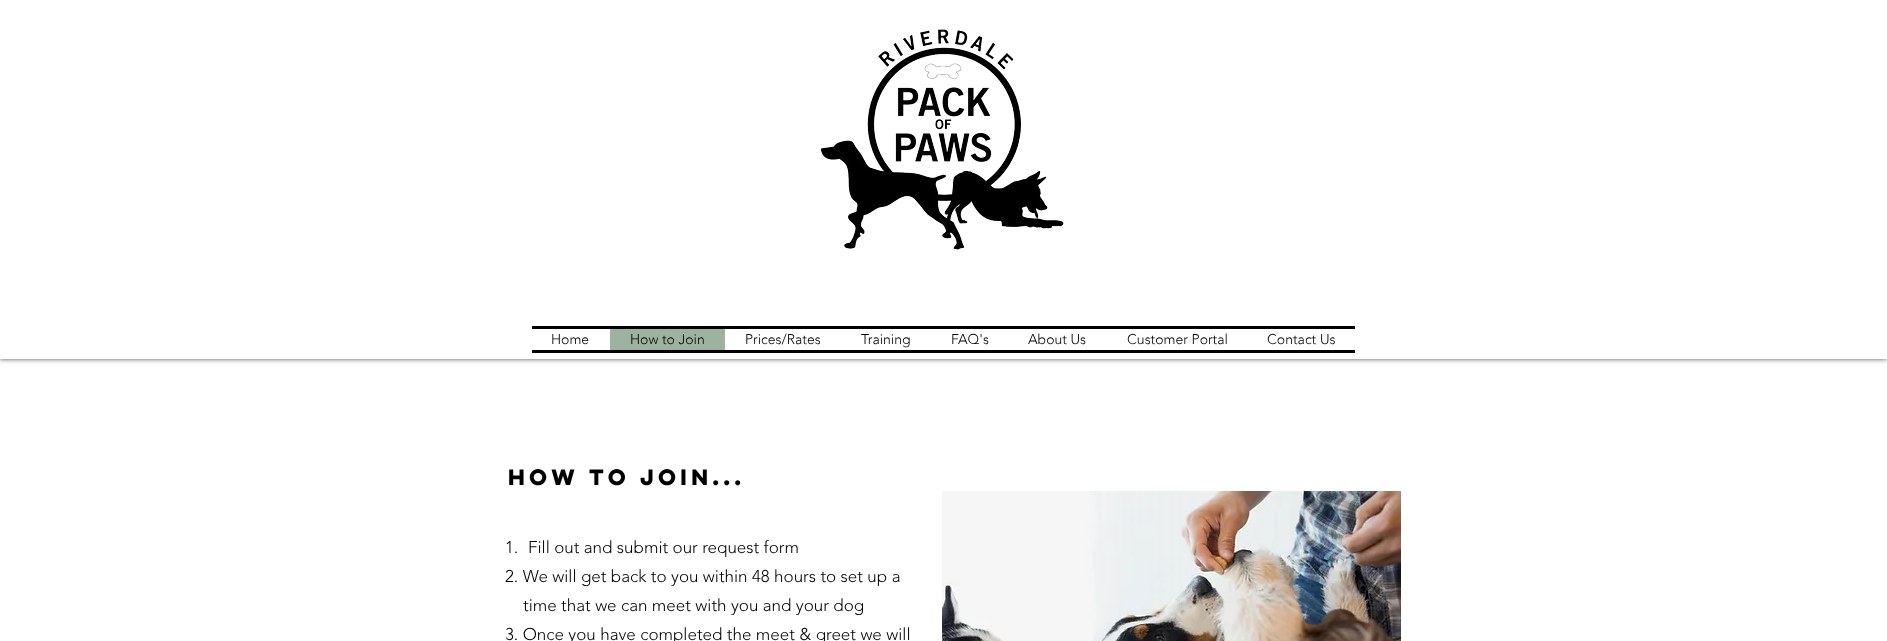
async function draw(canvas) {
  canvas.width = 1887
  canvas.height = 641
  const ctx = canvas.getContext('2d')
  ctx.miterLimit = 4
  ctx.fontKerning = 'normal'
  async function loadImage(src) {
    const img = new Image()
    img.src = src
    await img.decode()
    return img
  }

  ctx.fillStyle = '#fff'
  ctx.fillRect(0, 0, 1887, 641)
  ctx.save()
  ctx.beginPath()
  ctx.rect(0, 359, 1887, 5)
  ctx.clip()
  ctx.fillStyle = '#000000b3'
  ctx.filter = 'blur(2.5px)'
  ctx.beginPath()
  ctx.rect(0, 0, 1887, 359)
  ctx.fill()
  ctx.filter = 'none'
  ctx.restore()
  ctx.drawImage(await loadImage('image0.png'), 820, 29, 244, 221)
  ctx.fillStyle = '#000'
  ctx.fillRect(532, 326, 823, 3)
  ctx.fillRect(532, 350, 823, 3)
  ctx.font = '300 14px "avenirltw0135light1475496"'
  ctx.fillText('Home', 551, 344)
  ctx.fillStyle = '#9db39f'
  ctx.fillRect(610, 329, 115, 21)
  ctx.fillStyle = '#000'
  ctx.fillText('How to Join', 630, 344)
  ctx.fillText('Prices/Rates', 745, 344)
  ctx.fillText('Training', 861, 344)
  ctx.fillText('FAQ\'s', 951, 344)
  ctx.fillText('About Us', 1028, 344)
  ctx.fillText('Customer Portal', 1127, 344)
  ctx.fillText('Contact Us', 1267, 344)
  ctx.font = 'bold 20px "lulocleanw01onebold"'
  ctx.fillText('How to Join...', 508, 485)
  ctx.font = '300 17px "avenirltw0135light1475496"'
  ctx.fillText('1.', 505, 553)
  ctx.fillText('Fill out and submit our request form', 528, 553)
  ctx.fillText('2. We will get back to you within 48 hours to set up a', 505, 582)
  ctx.fillText('time that we can meet with you and your dog', 523, 611)
  ctx.fillText('3. Once you have completed the meet & greet we will', 505, 640)
  ctx.drawImage(await loadImage('image1.png'), 942, 491, 459, 150)
}

draw(document.querySelector('canvas'))
